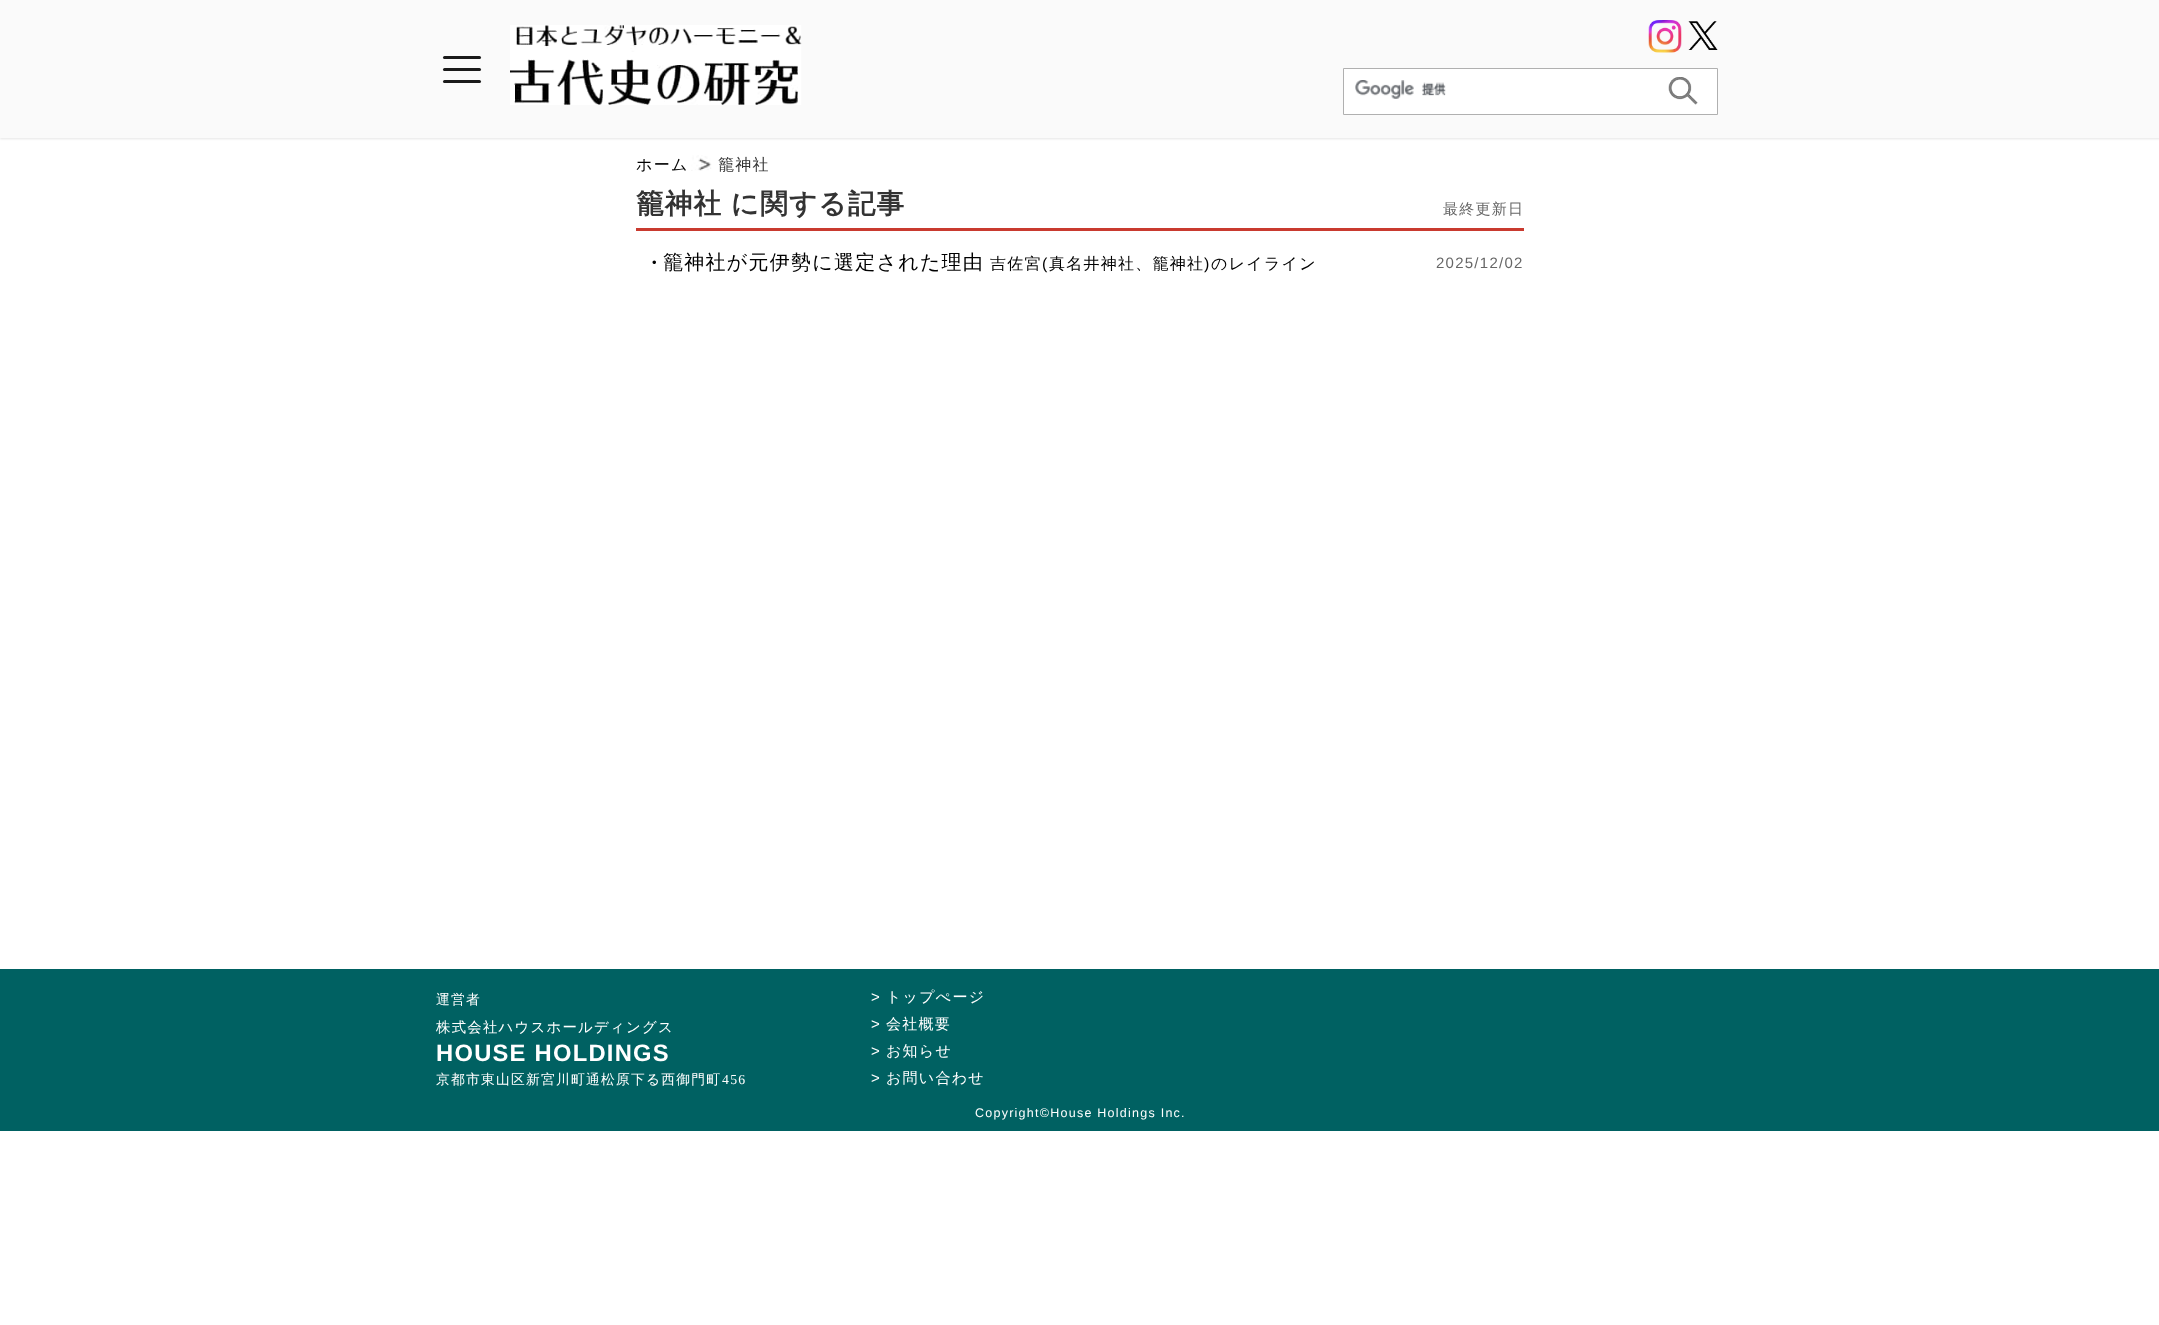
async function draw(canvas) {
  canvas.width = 2159
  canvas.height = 1325
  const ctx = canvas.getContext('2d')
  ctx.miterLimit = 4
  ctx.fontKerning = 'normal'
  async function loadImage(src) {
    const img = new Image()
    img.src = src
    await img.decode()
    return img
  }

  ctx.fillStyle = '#fff'
  ctx.fillRect(0, 0, 2159, 1325)
  ctx.fillStyle = '#0000001a'
  ctx.filter = 'blur(1px)'
  ctx.beginPath()
  ctx.rect(0, 1, 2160, 138)
  ctx.fill()
  ctx.filter = 'none'
  ctx.fillStyle = '#fafafa'
  ctx.fillRect(0, 0, 2159, 138)
  ctx.fillStyle = '#1a1a1a'
  ctx.beginPath()
  ctx.roundRect(443, 56, 38, 3, 1.5)
  ctx.fill()
  ctx.beginPath()
  ctx.roundRect(443, 68, 38, 3, 1.5)
  ctx.fill()
  ctx.beginPath()
  ctx.roundRect(443, 80, 38, 3, 1.5)
  ctx.fill()
  ctx.drawImage(await loadImage('image0.png'), 510, 25, 292, 80)
  ctx.drawImage(await loadImage('image1.png'), 1648, 20, 34, 33)
  ctx.drawImage(await loadImage('image2.png'), 1688, 21, 30, 29)
  ctx.fillStyle = '#fff'
  ctx.beginPath()
  ctx.rect(1343.5, 68.5, 374, 46)
  ctx.fill()
  ctx.strokeStyle = '#b0b0b0'
  ctx.stroke()
  ctx.drawImage(await loadImage('image3.png'), 1355, 80, 91, 19)
  ctx.drawImage(await loadImage('image4.png'), 1668, 77, 30, 28)
  ctx.letterSpacing = '1.25px'
  ctx.font = '500 16px WenQuanYi Zen Hei'
  ctx.fillStyle = '#000'
  ctx.fillText('ホーム', 636, 170)
  ctx.drawImage(await loadImage('image5.png'), 691, 155, 21, 16)
  ctx.fillStyle = '#333'
  ctx.fillText('籠神社', 718, 170)
  ctx.fillStyle = '#c93a2f'
  ctx.fillRect(636, 228, 888, 3)
  ctx.wordSpacing = '-1px'
  ctx.font = 'bold 27.5px WenQuanYi Zen Hei'
  ctx.fillStyle = '#333'
  ctx.fillText('籠神社 に関する記事', 636, 213)
  ctx.wordSpacing = '0px'
  ctx.font = '500 15px WenQuanYi Zen Hei'
  ctx.fillStyle = '#666'
  ctx.fillText('最終更新日', 1443, 214)
  ctx.font = '500 22px WenQuanYi Zen Hei'
  ctx.fillStyle = '#000'
  ctx.fillText('・', 643, 270)
  ctx.font = '500 20px WenQuanYi Zen Hei'
  ctx.fillText('籠神社が元伊勢に選定された理由', 663, 269)
  ctx.font = '500 16px WenQuanYi Zen Hei'
  ctx.fillText('吉佐宮', 990, 269)
  ctx.font = '16px Liberation Sans'
  ctx.fillText('(', 1042, 269)
  ctx.font = '500 16px WenQuanYi Zen Hei'
  ctx.fillText('真名井神社、籠神社', 1049, 269)
  ctx.font = '16px Liberation Sans'
  ctx.fillText(')', 1204, 269)
  ctx.font = '500 16px WenQuanYi Zen Hei'
  ctx.fillText('のレイライン', 1211, 269)
  ctx.font = '15px Liberation Sans'
  ctx.fillStyle = '#666'
  ctx.fillText('2025/12/02', 1436, 268)
  ctx.fillStyle = '#006162'
  ctx.fillRect(0, 969, 2159, 162)
  ctx.font = '500 13.75px WenQuanYi Zen Hei'
  ctx.fillStyle = '#fff'
  ctx.fillText('運営者', 436, 1004)
  ctx.font = '500 14.4px WenQuanYi Zen Hei'
  ctx.fillText('株式会社ハウスホールディングス', 436, 1032)
  ctx.font = 'bold 23.75px Liberation Sans'
  ctx.fillText('HOUSE HOLDINGS', 436, 1061)
  ctx.font = '500 13.75px WenQuanYi Zen Hei'
  ctx.fillText('京都市東山区新宮川町通松原下る西御門町', 436, 1084)
  ctx.font = '13.75px Liberation Serif'
  ctx.fillText('456', 722, 1084)
  ctx.font = '15px Liberation Sans'
  ctx.fillText('>', 871, 1002)
  ctx.font = '500 15px WenQuanYi Zen Hei'
  ctx.fillText('トップぺージ', 886, 1002)
  ctx.font = '15px Liberation Sans'
  ctx.fillText('>', 871, 1029)
  ctx.font = '500 15px WenQuanYi Zen Hei'
  ctx.fillText('会社概要', 886, 1029)
  ctx.font = '15px Liberation Sans'
  ctx.fillText('>', 871, 1056)
  ctx.font = '500 15px WenQuanYi Zen Hei'
  ctx.fillText('お知らせ', 886, 1056)
  ctx.font = '15px Liberation Sans'
  ctx.fillText('>', 871, 1083)
  ctx.font = '500 15px WenQuanYi Zen Hei'
  ctx.fillText('お問い合わせ', 886, 1083)
  ctx.font = '12.5px Liberation Sans'
  ctx.fillText('Copyright©House Holdings Inc.', 975, 1117)
}

draw(document.querySelector('canvas'))
